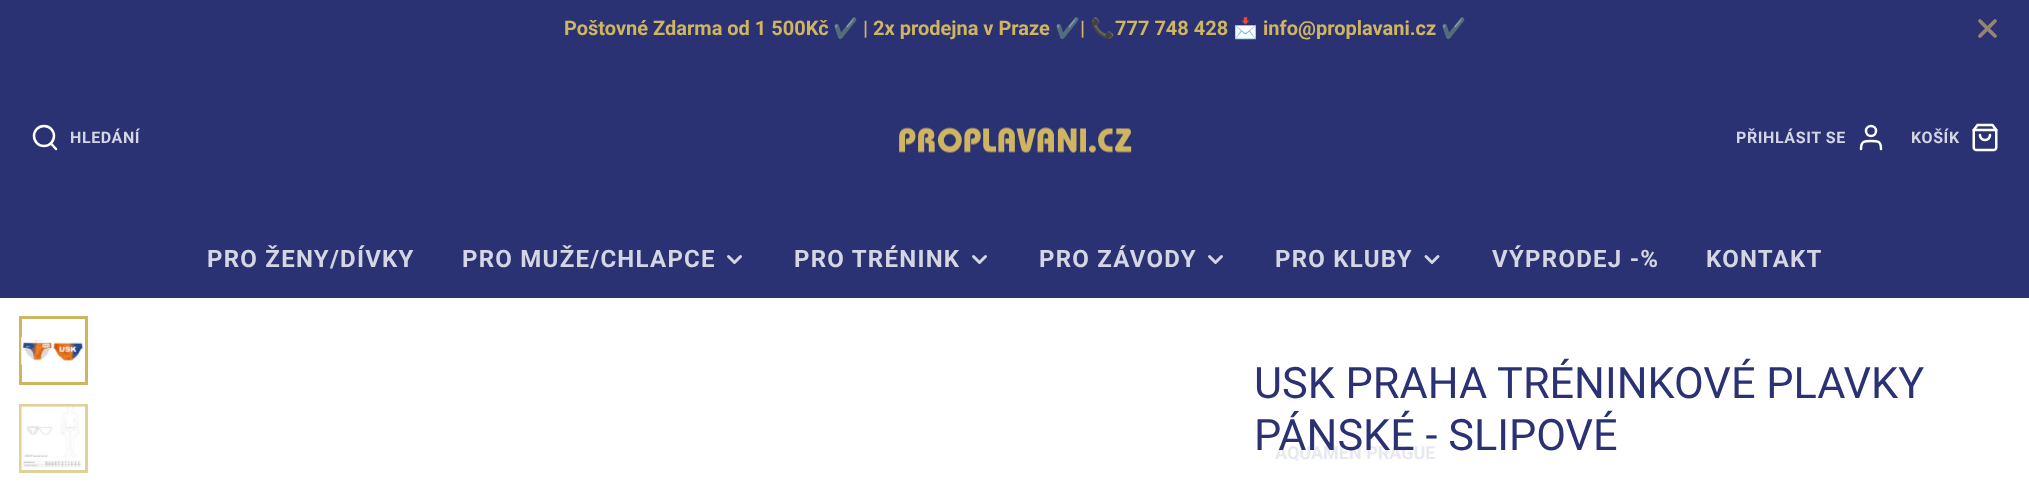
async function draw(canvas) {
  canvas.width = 2029
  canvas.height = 499
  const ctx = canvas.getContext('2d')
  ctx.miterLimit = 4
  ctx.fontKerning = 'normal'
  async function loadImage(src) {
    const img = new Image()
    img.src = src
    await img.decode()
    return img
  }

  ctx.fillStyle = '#fff'
  ctx.fillRect(0, 0, 2029, 499)
  ctx.fillStyle = '#2a3273'
  ctx.fillRect(0, 0, 2029, 298)
  ctx.font = 'bold 20px Roboto'
  ctx.fillStyle = '#d0b561'
  ctx.fillText('Poštovné Zdarma od 1 500Kč', 564, 35)
  ctx.font = 'bold 20px Noto Color Emoji'
  ctx.fillText('✔️', 833, 35)
  ctx.font = 'bold 20px Roboto'
  ctx.fillText('| 2x prodejna v Praze', 863, 35)
  ctx.font = 'bold 20px Noto Color Emoji'
  ctx.fillText('✔️', 1055, 35)
  ctx.font = 'bold 20px Roboto'
  ctx.fillText('|', 1080, 35)
  ctx.font = 'bold 20px Noto Color Emoji'
  ctx.fillText('📞', 1090, 35)
  ctx.font = 'bold 20px Roboto'
  ctx.fillText('777 748 428', 1115, 35)
  ctx.font = 'bold 20px Noto Color Emoji'
  ctx.fillText('📩', 1233, 35)
  ctx.font = 'bold 20px Roboto'
  ctx.fillText('info@proplavani.cz', 1263, 35)
  ctx.font = 'bold 20px Noto Color Emoji'
  ctx.fillText('✔️', 1441, 35)
  ctx.beginPath()
  ctx.moveTo(1995, 21)
  ctx.lineTo(1980, 36)
  ctx.moveTo(1980, 21)
  ctx.lineTo(1995, 36)
  ctx.strokeStyle = '#948667'
  ctx.lineWidth = 3.8
  ctx.lineCap = 'round'
  ctx.lineJoin = 'round'
  ctx.stroke()
  ctx.beginPath()
  ctx.arc(44, 136, 10, 0, 2 * Math.PI)
  ctx.strokeStyle = '#fff'
  ctx.lineWidth = 2.5
  ctx.stroke()
  ctx.beginPath()
  ctx.moveTo(56, 149)
  ctx.lineTo(51, 143.5)
  ctx.stroke()
  ctx.letterSpacing = '0.6px'
  ctx.font = 'bold 16px Roboto'
  ctx.fillStyle = '#d4d6e3'
  ctx.fillText('HLEDÁNÍ', 70, 143)
  ctx.drawImage(await loadImage('image0.png'), 899, 127, 233, 26)
  ctx.fillText('PŘIHLÁSIT SE', 1736, 143)
  ctx.beginPath()
  ctx.arc(1871, 131, 5, 0, 2 * Math.PI)
  ctx.stroke()
  ctx.beginPath()
  ctx.moveTo(1881, 149)
  ctx.bezierCurveTo(1881, 141, 1878, 141, 1871, 141)
  ctx.bezierCurveTo(1864.5, 141, 1861, 141, 1861, 149)
  ctx.stroke()
  ctx.fillText('KOŠÍK', 1911, 143)
  ctx.drawImage(await loadImage('image1.png'), 1972, 123, 26, 29)
  ctx.letterSpacing = '1.25px'
  ctx.font = 'bold 24px Roboto'
  ctx.fillText('PRO ŽENY/DÍVKY', 207, 267)
  ctx.fillText('PRO MUŽE/CHLAPCE', 462, 267)
  ctx.beginPath()
  ctx.moveTo(728.5, 256.5)
  ctx.lineTo(734.5, 262.5)
  ctx.lineTo(740.5, 256.5)
  ctx.strokeStyle = '#d4d6e3'
  ctx.lineWidth = 3
  ctx.stroke()
  ctx.fillText('PRO TRÉNINK', 794, 267)
  ctx.beginPath()
  ctx.moveTo(973.5, 256.5)
  ctx.lineTo(979.5, 262.5)
  ctx.lineTo(985.5, 256.5)
  ctx.stroke()
  ctx.fillText('PRO ZÁVODY', 1039, 267)
  ctx.beginPath()
  ctx.moveTo(1209.5, 256.5)
  ctx.lineTo(1215.5, 262.5)
  ctx.lineTo(1221.5, 256.5)
  ctx.stroke()
  ctx.fillText('PRO KLUBY', 1275, 267)
  ctx.beginPath()
  ctx.moveTo(1426, 256.5)
  ctx.lineTo(1432, 262.5)
  ctx.lineTo(1438, 256.5)
  ctx.stroke()
  ctx.letterSpacing = '0px'
  ctx.font = 'bold 18px Roboto'
  ctx.fillStyle = '#e8e9f0'
  ctx.fillText('AQUAMEN PRAGUE', 1275, 459)
  ctx.letterSpacing = '1.25px'
  ctx.font = 'bold 24px Roboto'
  ctx.fillStyle = '#d4d6e3'
  ctx.fillText('VÝPRODEJ -%', 1492, 267)
  ctx.fillText('KONTAKT', 1706, 267)
  ctx.strokeStyle = '#d0b561'
  ctx.lineJoin = 'miter'
  ctx.strokeRect(20.5, 317.5, 66, 66)
  ctx.drawImage(await loadImage('image2.png'), 21, 336, 63, 29)
  ctx.strokeStyle = '#e1d09a'
  ctx.strokeRect(20.5, 405.5, 66, 66)
  ctx.drawImage(await loadImage('image3.png'), 21, 405, 64, 65)
  ctx.letterSpacing = '0px'
  ctx.font = '43.25px Roboto'
  ctx.fillStyle = '#2a3273'
  ctx.fillText('USK PRAHA TRÉNINKOVÉ PLAVKY', 1254, 398)
  ctx.fillText('PÁNSKÉ - SLIPOVÉ', 1254, 450)
}

draw(document.querySelector('canvas'))
